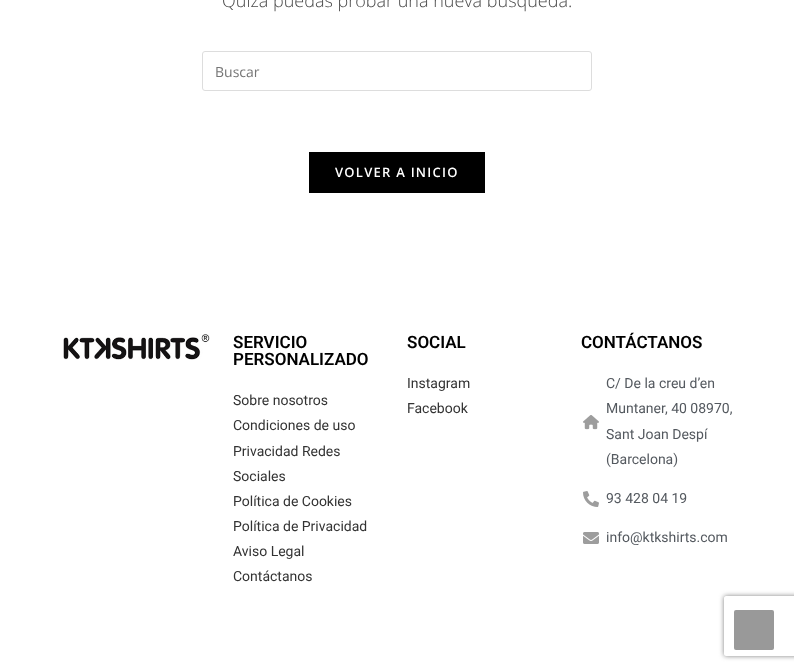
async function draw(canvas) {
  canvas.width = 794
  canvas.height = 670
  const ctx = canvas.getContext('2d')
  ctx.miterLimit = 4
  ctx.fontKerning = 'normal'
  async function loadImage(src) {
    const img = new Image()
    img.src = src
    await img.decode()
    return img
  }

  ctx.fillStyle = '#fff'
  ctx.fillRect(0, 0, 794, 670)
  ctx.font = '300 18px Open Sans'
  ctx.fillStyle = '#4a4a4a'
  ctx.fillText('Quizá puedas probar una nueva búsqueda.', 222, 7)
  ctx.beginPath()
  ctx.roundRect(202.5, 51.5, 389, 39, 2.5)
  ctx.strokeStyle = '#ddd'
  ctx.stroke()
  ctx.font = '14px Open Sans'
  ctx.fillStyle = '#757575'
  ctx.fillText('Buscar', 215, 77)
  ctx.fillStyle = '#000'
  ctx.fillRect(309, 152, 176, 41)
  ctx.letterSpacing = '1.25px'
  ctx.font = '600 13px Open Sans'
  ctx.fillStyle = '#fff'
  ctx.fillText('VOLVER A INICIO', 335, 177)
  ctx.drawImage(await loadImage('image0.png'), 63, 334, 147, 26)
  ctx.letterSpacing = '0px'
  ctx.font = '600 17px Roboto'
  ctx.fillStyle = '#000'
  ctx.fillText('SERVICIO', 233, 348)
  ctx.fillText('PERSONALIZADO', 233, 365)
  ctx.font = '14px Roboto'
  ctx.fillStyle = '#333'
  ctx.fillText('Sobre nosotros', 233, 405)
  ctx.fillText('Condiciones de uso', 233, 430)
  ctx.fillText('Privacidad Redes', 233, 456)
  ctx.fillText('Sociales', 233, 481)
  ctx.fillText('Política de Cookies', 233, 506)
  ctx.fillText('Política de Privacidad', 233, 531)
  ctx.fillText('Aviso Legal', 233, 556)
  ctx.fillText('Contáctanos', 233, 581)
  ctx.font = '600 17px Roboto'
  ctx.fillStyle = '#000'
  ctx.fillText('SOCIAL', 407, 348)
  ctx.font = '14px Roboto'
  ctx.fillStyle = '#333'
  ctx.fillText('Instagram', 407, 388)
  ctx.fillText('Facebook', 407, 413)
  ctx.font = '600 17px Roboto'
  ctx.fillStyle = '#000'
  ctx.fillText('CONTÁCTANOS', 581, 348)
  ctx.drawImage(await loadImage('image1.png'), 583, 415, 16, 15)
  ctx.font = '14px Roboto'
  ctx.fillStyle = '#54595f'
  ctx.fillText('C/ De la creu d’en', 606, 388)
  ctx.fillText('Muntaner, 40 08970,', 606, 413)
  ctx.fillText('Sant Joan Despí', 606, 439)
  ctx.fillText('(Barcelona)', 606, 464)
  ctx.drawImage(await loadImage('image2.png'), 583, 491, 16, 16)
  ctx.fillText('93 428 04 19', 606, 503)
  ctx.drawImage(await loadImage('image3.png'), 583, 532, 16, 12)
  ctx.fillText('info@ktkshirts.com', 606, 542)
  ctx.save()
  ctx.beginPath()
  ctx.moveTo(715, 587)
  ctx.lineTo(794, 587)
  ctx.lineTo(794, 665)
  ctx.lineTo(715, 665)
  ctx.closePath()
  ctx.moveTo(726, 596)
  ctx.lineTo(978, 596)
  ctx.bezierCurveTo(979, 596, 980, 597, 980, 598)
  ctx.lineTo(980, 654)
  ctx.bezierCurveTo(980, 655, 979, 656, 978, 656)
  ctx.lineTo(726, 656)
  ctx.bezierCurveTo(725, 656, 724, 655, 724, 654)
  ctx.lineTo(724, 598)
  ctx.bezierCurveTo(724, 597, 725, 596, 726, 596)
  ctx.closePath()
  ctx.clip('evenodd')
  ctx.fillStyle = '#808080'
  ctx.filter = 'blur(2.5px)'
  ctx.beginPath()
  ctx.roundRect(724, 596, 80, 60, 2)
  ctx.fill()
  ctx.filter = 'none'
  ctx.restore()
  ctx.fillStyle = '#999'
  ctx.beginPath()
  ctx.roundRect(734, 610, 40, 40, 2)
  ctx.fill()
}

draw(document.querySelector('canvas'))
